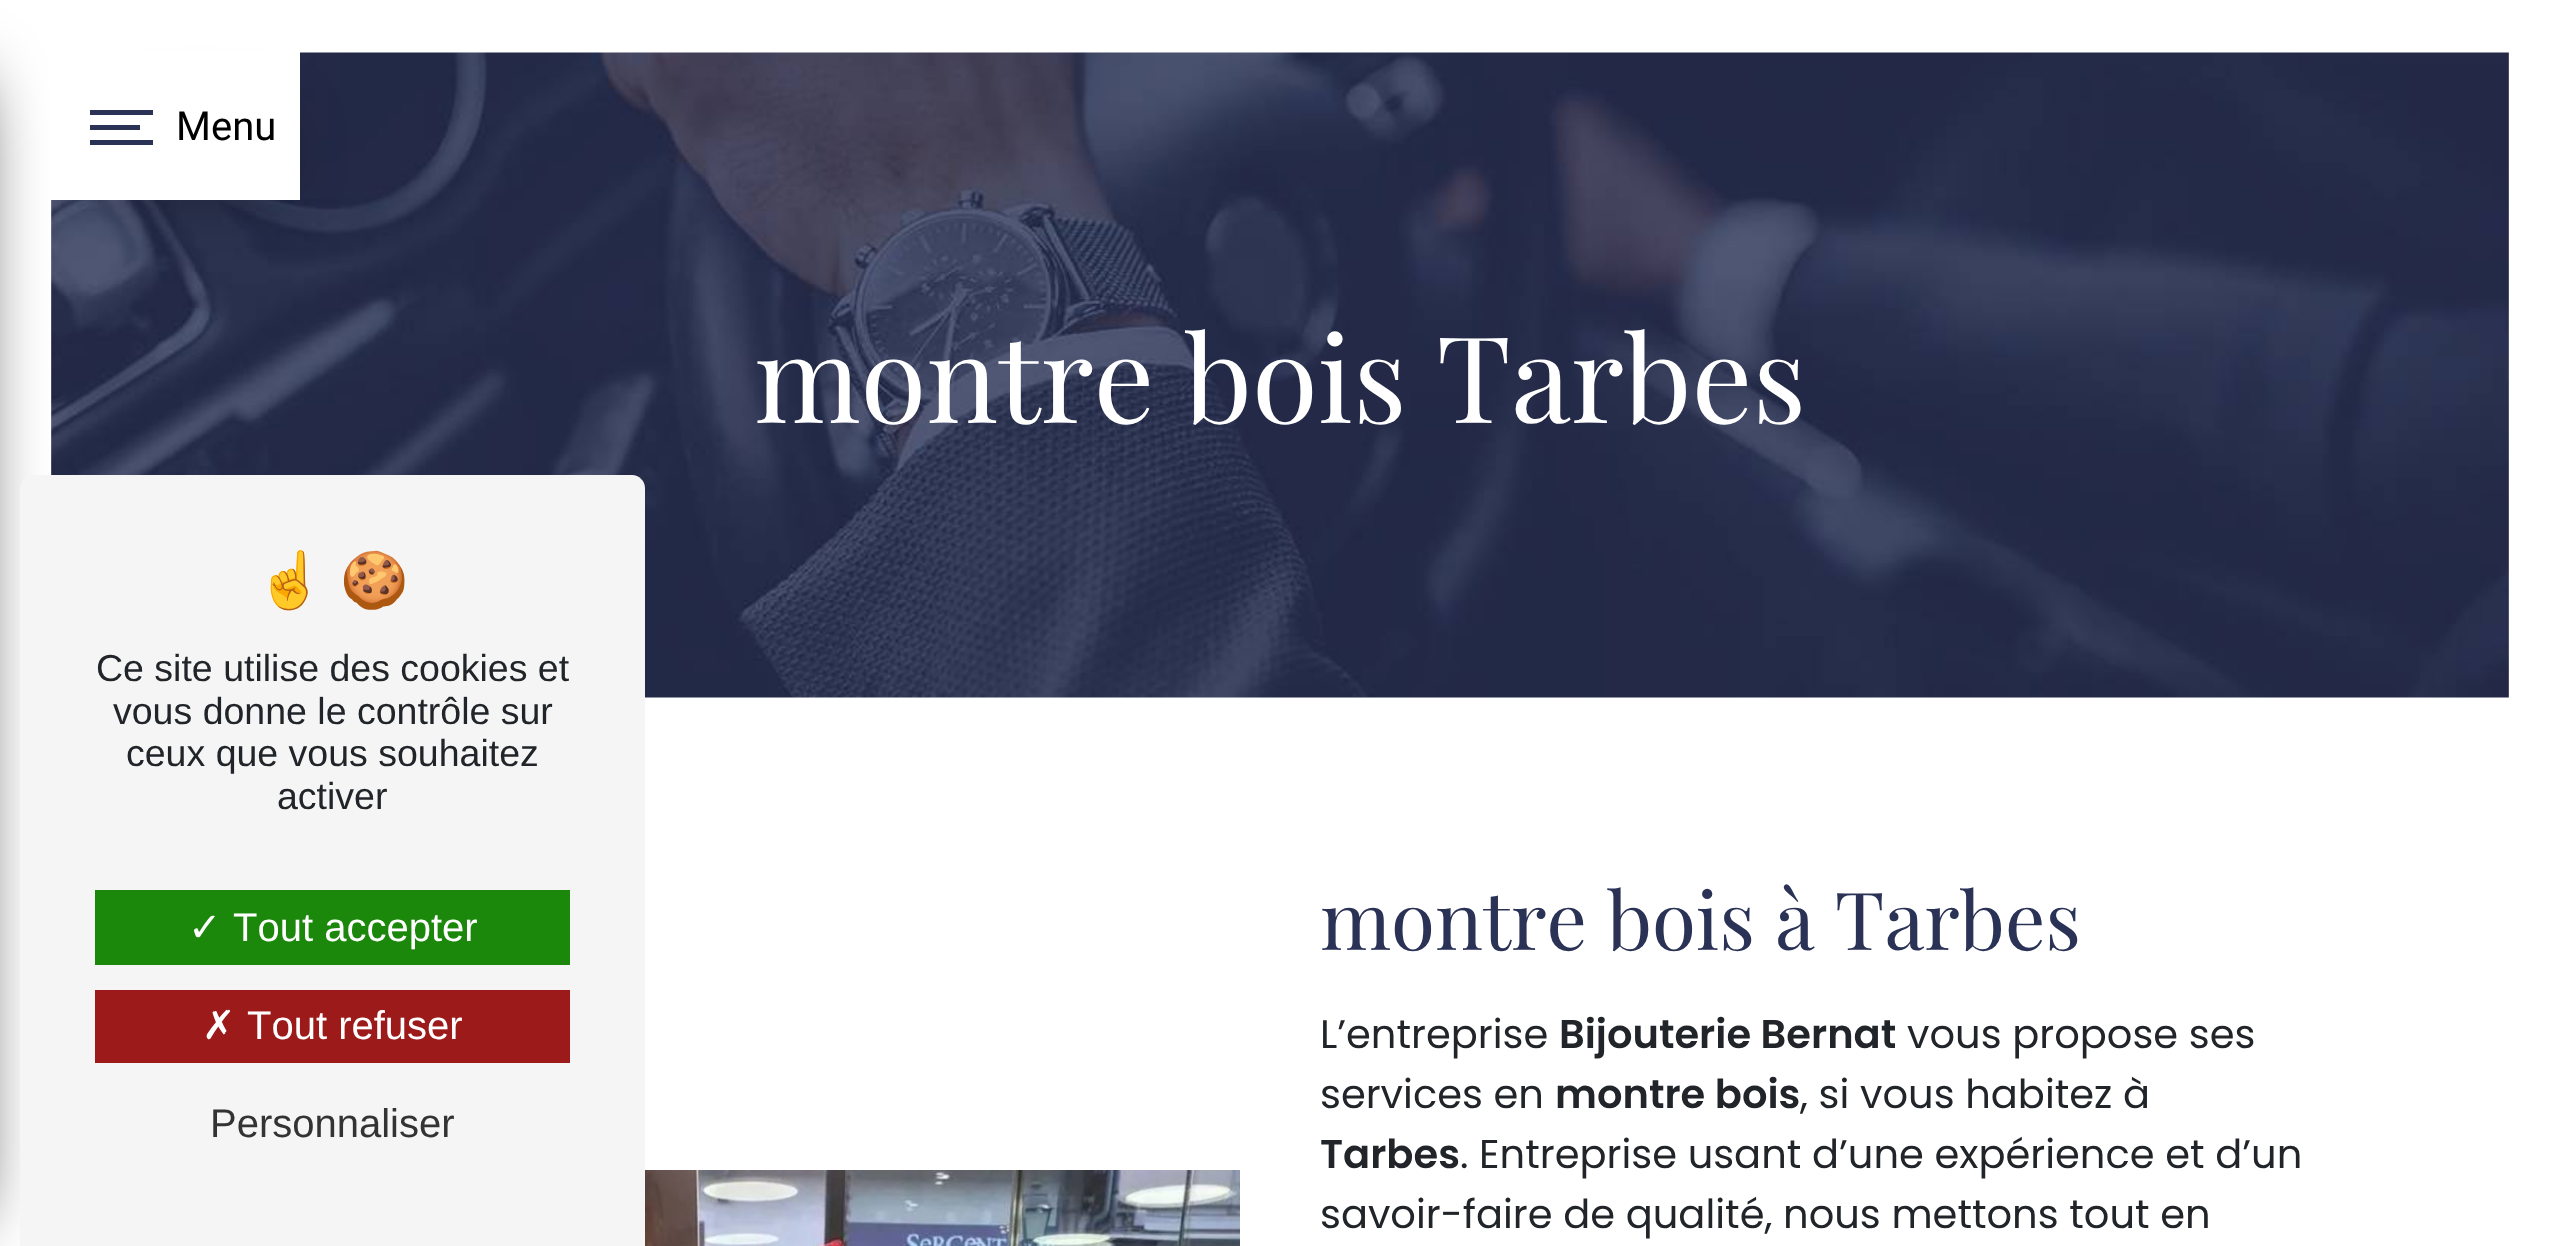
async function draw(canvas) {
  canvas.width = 2560
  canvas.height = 1246
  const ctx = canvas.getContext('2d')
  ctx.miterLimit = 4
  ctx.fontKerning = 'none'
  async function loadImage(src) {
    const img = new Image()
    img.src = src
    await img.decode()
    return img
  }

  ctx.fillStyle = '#fff'
  ctx.fillRect(0, 0, 2560, 1246)
  ctx.drawImage(await loadImage('image0.png'), 51, 52, 2458, 646)
  ctx.fillStyle = '#000'
  ctx.filter = 'blur(36px)'
  ctx.beginPath()
  ctx.rect(-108, 83, 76, 1132)
  ctx.fill()
  ctx.filter = 'none'
  ctx.filter = 'blur(36px)'
  ctx.beginPath()
  ctx.rect(133, 133, 135, 35)
  ctx.fill()
  ctx.filter = 'none'
  ctx.fillStyle = '#fff'
  ctx.fillRect(50, 51, 250, 149)
  ctx.fillStyle = '#2a3256'
  ctx.fillRect(90, 110, 63, 5)
  ctx.font = '40px Roboto'
  ctx.fillStyle = '#000'
  ctx.fillText('Menu', 176, 140)
  ctx.fillStyle = '#2a3256'
  ctx.fillRect(90, 125, 50, 5)
  ctx.fillRect(90, 140, 63, 5)
  ctx.font = '120px Playfair Display'
  ctx.fillStyle = '#fff'
  ctx.fillText('montre bois Tarbes', 754, 423)
  ctx.drawImage(await loadImage('image1.png'), 645, 1170, 595, 76)
  ctx.font = '80px Playfair Display'
  ctx.fillStyle = '#2a3256'
  ctx.fillText('montre bois à Tarbes', 1320, 950)
  ctx.font = '40px Poppins'
  ctx.fillStyle = '#212529'
  ctx.fillText('L’entreprise', 1320, 1048)
  ctx.font = '600 40px Poppins'
  ctx.fillText('Bijouterie Bernat', 1559, 1048)
  ctx.font = '40px Poppins'
  ctx.fillText('vous propose ses', 1907, 1048)
  ctx.fillText('services en', 1320, 1108)
  ctx.font = '600 40px Poppins'
  ctx.fillText('montre bois', 1555, 1108)
  ctx.font = '40px Poppins'
  ctx.fillText(', si vous habitez à', 1800, 1108)
  ctx.font = '600 40px Poppins'
  ctx.fillText('Tarbes', 1320, 1168)
  ctx.font = '40px Poppins'
  ctx.fillText('. Entreprise usant d’une expérience et d’un', 1460, 1168)
  ctx.fillText('savoir-faire de qualité, nous mettons tout en', 1320, 1228)
  ctx.fillStyle = '#f5f5f5'
  ctx.beginPath()
  ctx.moveTo(33, 475)
  ctx.lineTo(632, 475)
  ctx.bezierCurveTo(639, 475, 645, 481, 645, 488)
  ctx.lineTo(645, 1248)
  ctx.lineTo(20, 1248)
  ctx.lineTo(20, 488)
  ctx.bezierCurveTo(20, 481, 26, 475, 33, 475)
  ctx.closePath()
  ctx.fill()
  ctx.font = '55px Noto Color Emoji'
  ctx.fillStyle = '#212529'
  ctx.fillText('☝', 256, 599)
  ctx.fillText('🍪', 340, 599)
  ctx.font = '37.5px Liberation Sans'
  ctx.fillText('Ce site utilise des cookies et', 96, 681)
  ctx.fillText('vous donne le contrôle sur', 113, 724)
  ctx.fillText('ceux que vous souhaitez', 126, 766)
  ctx.fillText('activer', 277, 809)
  ctx.fillStyle = '#1b870b'
  ctx.fillRect(95, 890, 475, 75)
  ctx.font = '40px DejaVu Sans'
  ctx.fillStyle = '#fff'
  ctx.fillText('✓', 188, 941)
  ctx.font = '40px Liberation Sans'
  ctx.fillText('Tout accepter', 233, 941)
  ctx.fillStyle = '#9c1a1a'
  ctx.fillRect(95, 990, 475, 73)
  ctx.font = '40px DejaVu Sans'
  ctx.fillStyle = '#fff'
  ctx.fillText('✗', 202, 1039)
  ctx.font = '40px Liberation Sans'
  ctx.fillText('Tout refuser', 247, 1039)
  ctx.fillStyle = '#333'
  ctx.fillText('Personnaliser', 210, 1137)
}

draw(document.querySelector('canvas'))
